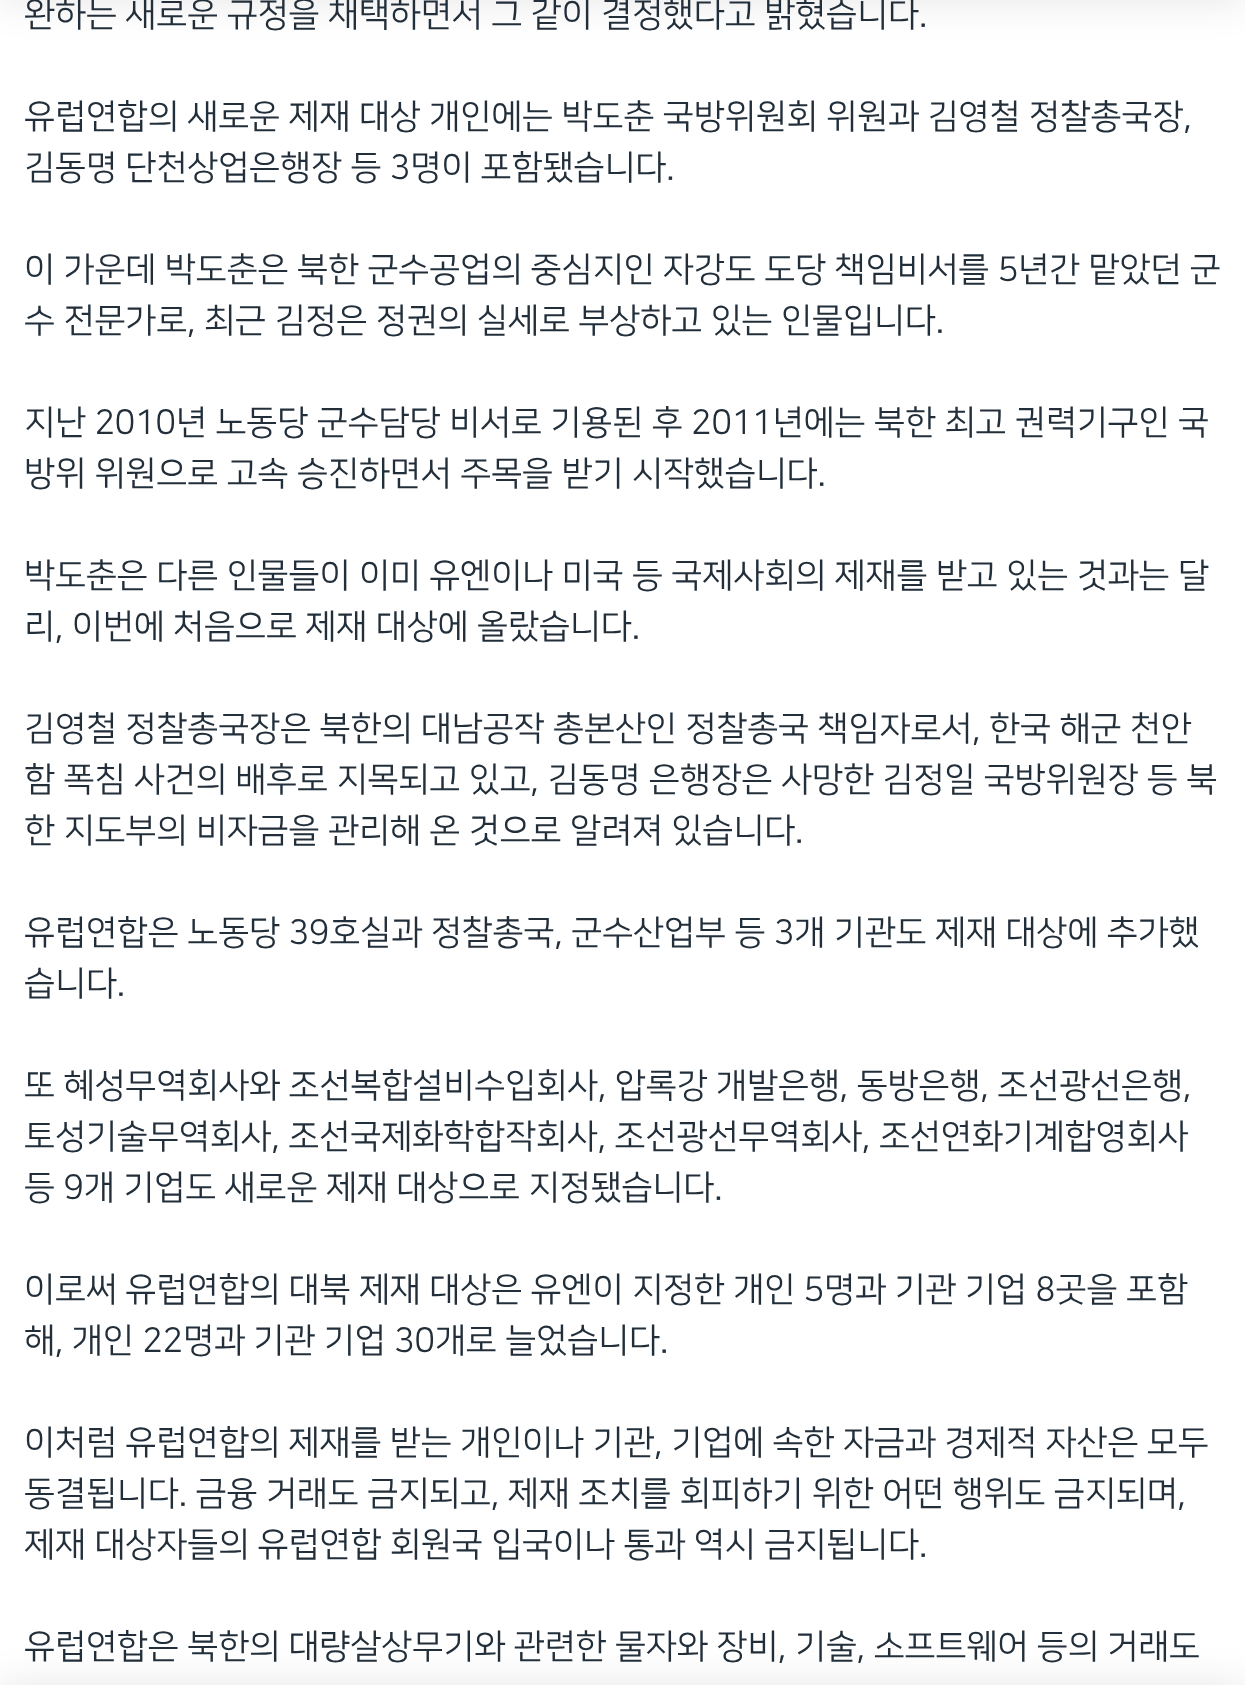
async function draw(canvas) {
  canvas.width = 1245
  canvas.height = 1685
  const ctx = canvas.getContext('2d')
  ctx.miterLimit = 4
  ctx.fontKerning = 'normal'

  ctx.fillStyle = '#fff'
  ctx.fillRect(0, 0, 1245, 1685)
  ctx.fillStyle = '#0000001a'
  ctx.filter = 'blur(20px)'
  ctx.beginPath()
  ctx.rect(0, -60, 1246, 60)
  ctx.fill()
  ctx.filter = 'none'
  ctx.filter = 'blur(20px)'
  ctx.beginPath()
  ctx.rect(0, 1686, 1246, 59)
  ctx.fill()
  ctx.filter = 'none'
  ctx.font = '34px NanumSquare'
  ctx.fillStyle = '#222f3a'
  ctx.fillText('완하는 새로운 규정을 채택하면서 그 같이 결정했다고 밝혔습니다.', 24, 25)
  ctx.fillText('유럽연합의 새로운 제재 대상 개인에는 박도춘 국방위원회 위원과 김영철 정찰총국장,', 24, 127)
  ctx.fillText('김동명 단천상업은행장 등 3명이 포함됐습니다.', 24, 178)
  ctx.fillText('이 가운데 박도춘은 북한 군수공업의 중심지인 자강도 도당 책임비서를 5년간 맡았던 군', 24, 280)
  ctx.fillText('수 전문가로, 최근 김정은 정권의 실세로 부상하고 있는 인물입니다.', 24, 331)
  ctx.fillText('지난 2010년 노동당 군수담당 비서로 기용된 후 2011년에는 북한 최고 권력기구인 국', 24, 433)
  ctx.fillText('방위 위원으로 고속 승진하면서 주목을 받기 시작했습니다.', 24, 484)
  ctx.fillText('박도춘은 다른 인물들이 이미 유엔이나 미국 등 국제사회의 제재를 받고 있는 것과는 달', 24, 586)
  ctx.fillText('리, 이번에 처음으로 제재 대상에 올랐습니다.', 24, 637)
  ctx.fillText('김영철 정찰총국장은 북한의 대남공작 총본산인 정찰총국 책임자로서, 한국 해군 천안', 24, 739)
  ctx.fillText('함 폭침 사건의 배후로 지목되고 있고, 김동명 은행장은 사망한 김정일 국방위원장 등 북', 24, 790)
  ctx.fillText('한 지도부의 비자금을 관리해 온 것으로 알려져 있습니다.', 24, 841)
  ctx.fillText('유럽연합은 노동당 39호실과 정찰총국, 군수산업부 등 3개 기관도 제재 대상에 추가했', 24, 943)
  ctx.fillText('습니다.', 24, 994)
  ctx.fillText('또 혜성무역회사와 조선복합설비수입회사, 압록강 개발은행, 동방은행, 조선광선은행,', 24, 1096)
  ctx.fillText('토성기술무역회사, 조선국제화학합작회사, 조선광선무역회사, 조선연화기계합영회사', 24, 1147)
  ctx.fillText('등 9개 기업도 새로운 제재 대상으로 지정됐습니다.', 24, 1198)
  ctx.fillText('이로써 유럽연합의 대북 제재 대상은 유엔이 지정한 개인 5명과 기관 기업 8곳을 포함', 24, 1300)
  ctx.fillText('해, 개인 22명과 기관 기업 30개로 늘었습니다.', 24, 1351)
  ctx.fillText('이처럼 유럽연합의 제재를 받는 개인이나 기관, 기업에 속한 자금과 경제적 자산은 모두', 24, 1453)
  ctx.fillText('동결됩니다. 금융 거래도 금지되고, 제재 조치를 회피하기 위한 어떤 행위도 금지되며,', 24, 1504)
  ctx.fillText('제재 대상자들의 유럽연합 회원국 입국이나 통과 역시 금지됩니다.', 24, 1555)
  ctx.fillText('유럽연합은 북한의 대량살상무기와 관련한 물자와 장비, 기술, 소프트웨어 등의 거래도', 24, 1657)
}

draw(document.querySelector('canvas'))
